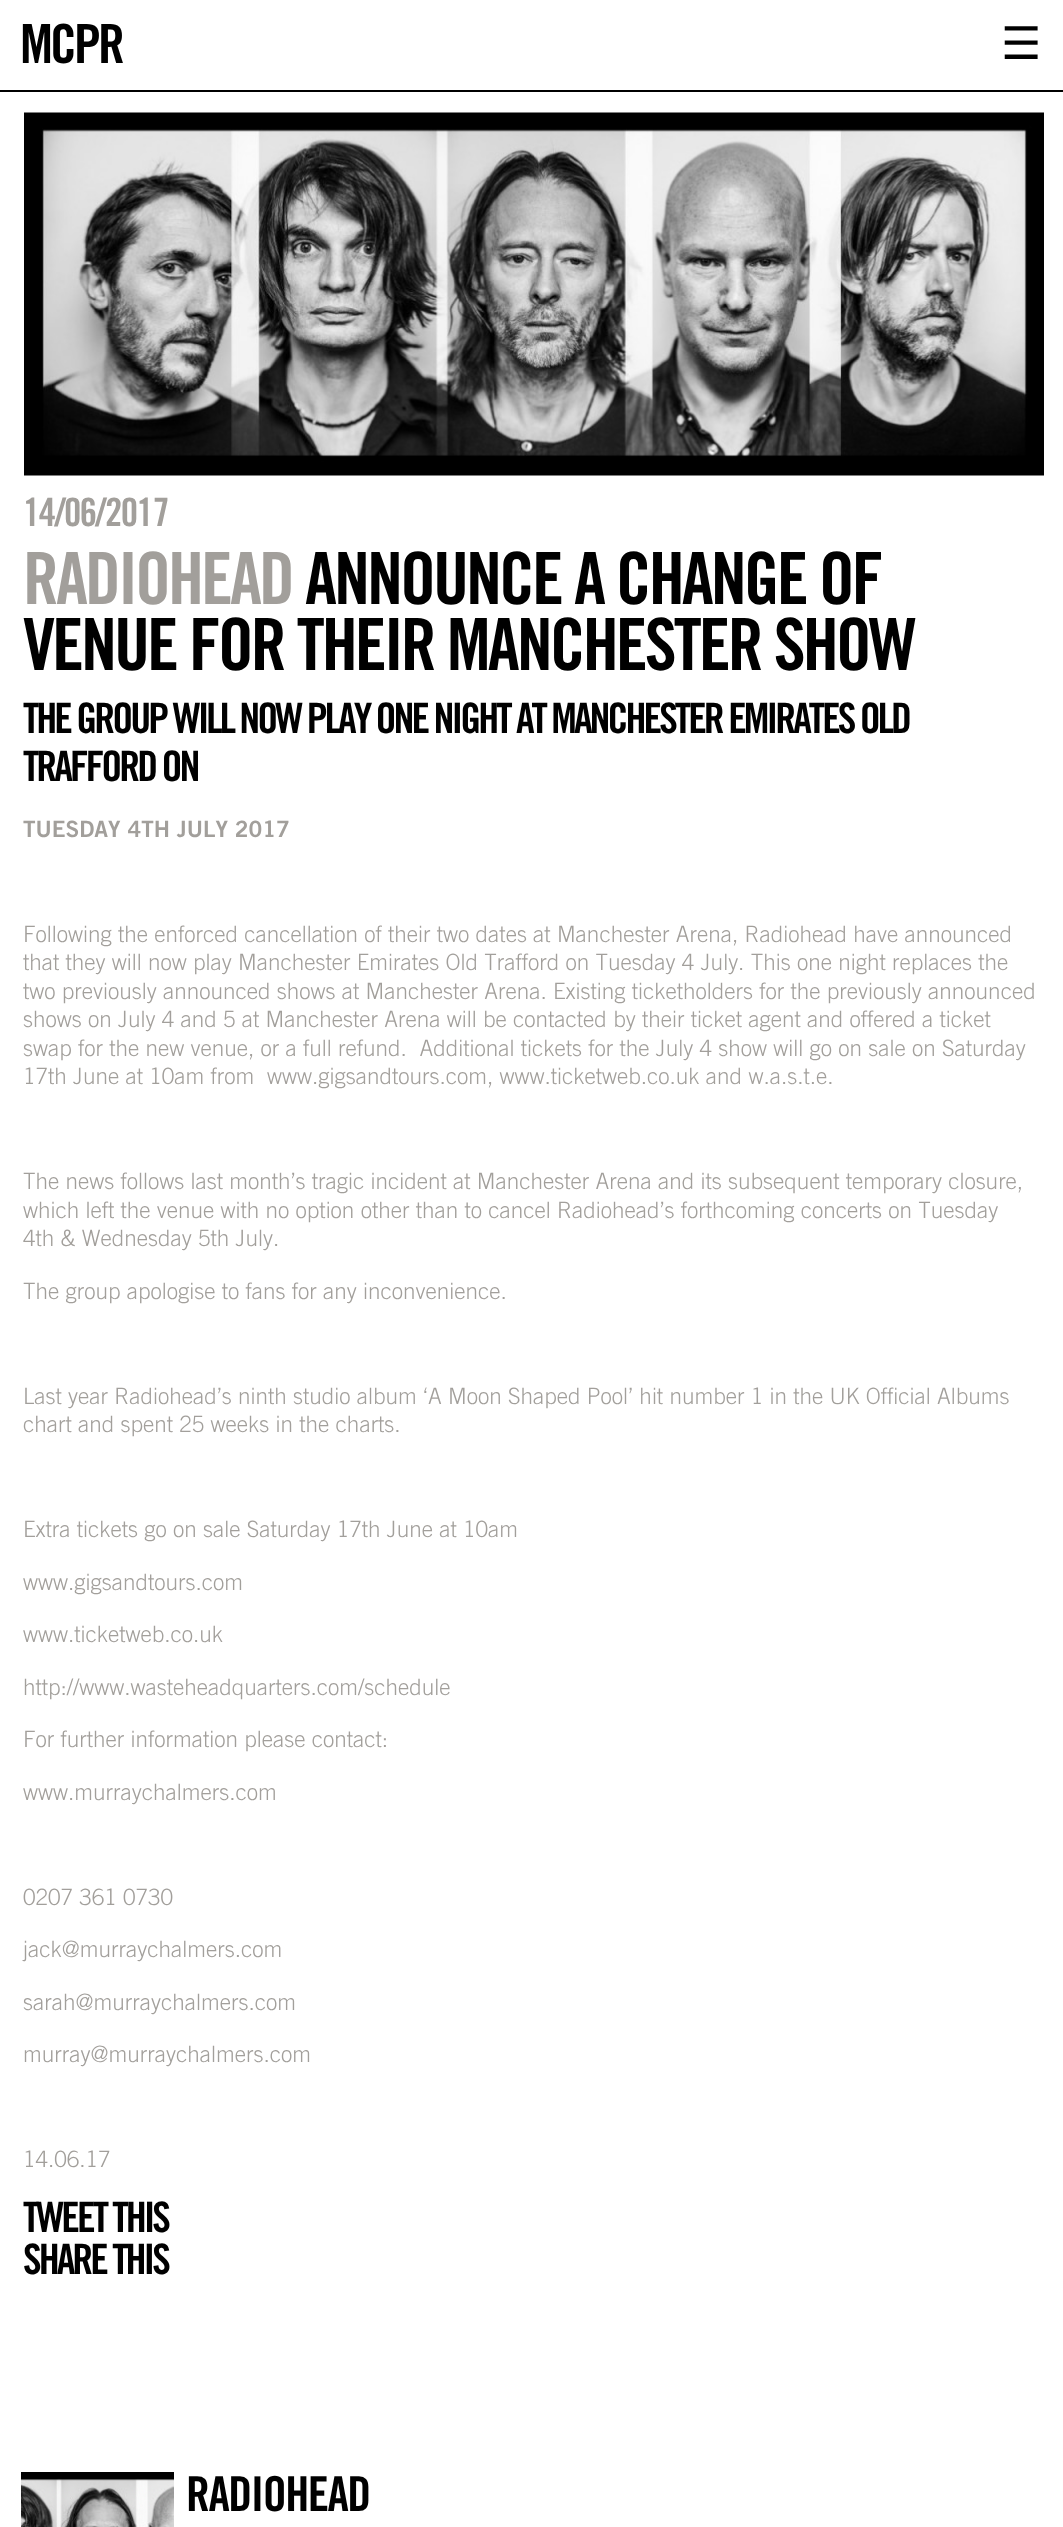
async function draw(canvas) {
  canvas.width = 1063
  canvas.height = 2527
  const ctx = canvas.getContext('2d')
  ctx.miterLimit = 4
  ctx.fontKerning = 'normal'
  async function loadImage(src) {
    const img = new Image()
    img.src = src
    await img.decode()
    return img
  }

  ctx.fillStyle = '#fff'
  ctx.fillRect(0, 0, 1063, 2527)
  ctx.fillStyle = '#000'
  ctx.fillRect(0, 90, 1063, 2)
  ctx.letterSpacing = '-3px'
  ctx.font = 'bold 54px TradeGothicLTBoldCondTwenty'
  ctx.fillText('MCPR', 20, 63)
  ctx.letterSpacing = '0px'
  ctx.font = '45px DejaVu Sans'
  ctx.fillText('☰', 1001, 59)
  ctx.drawImage(await loadImage('image0.png'), 24, 112, 1020, 364)
  ctx.letterSpacing = '-1.5px'
  ctx.font = 'bold 39px TradeGothicLTBoldCondTwenty'
  ctx.fillStyle = '#a29f9b'
  ctx.fillText('14/06/2017', 23, 526)
  ctx.letterSpacing = '-3px'
  ctx.font = 'bold 72px TradeGothicLTBoldCondTwenty'
  ctx.fillText('RADIOHEAD', 23, 604)
  ctx.fillStyle = '#000'
  ctx.fillText('ANNOUNCE A CHANGE OF', 305, 604)
  ctx.fillText('VENUE FOR THEIR MANCHESTER SHOW', 23, 670)
  ctx.font = 'bold 42px TradeGothicLTBoldCondTwenty'
  ctx.fillText('THE GROUP WILL NOW PLAY ONE NIGHT AT MANCHESTER EMIRATES OLD', 23, 733)
  ctx.fillText('TRAFFORD ON', 23, 781)
  ctx.letterSpacing = '0px'
  ctx.font = 'bold 22.5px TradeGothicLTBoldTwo'
  ctx.fillStyle = '#a29f9b'
  ctx.fillText('TUESDAY 4TH JULY 2017', 23, 837)
  ctx.font = '300 22.5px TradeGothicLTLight'
  ctx.fillText('Following the enforced cancellation of their two dates at Manchester Arena, Radiohead have announced', 23, 942)
  ctx.fillText('that they will now play Manchester Emirates Old Trafford on Tuesday 4 July. This one night replaces the', 23, 970)
  ctx.fillText('two previously announced shows at Manchester Arena. Existing ticketholders for the previously announced', 23, 999)
  ctx.fillText('shows on July 4 and 5 at Manchester Arena will be contacted by their ticket agent and offered a ticket', 23, 1027)
  ctx.fillText('swap for the new venue, or a full refund.  Additional tickets for the July 4 show will go on sale on Saturday', 23, 1056)
  ctx.fillText('17th June at 10am from', 23, 1084)
  ctx.fillText('www.gigsandtours.com, www.ticketweb.co.uk and w.a.s.t.e.', 267, 1084)
  ctx.fillText('The news follows last month’s tragic incident at Manchester Arena and its subsequent temporary closure,', 23, 1189)
  ctx.fillText('which left the venue with no option other than to cancel Radiohead’s forthcoming concerts on Tuesday', 23, 1218)
  ctx.fillText('4th & Wednesday 5th July.', 23, 1246)
  ctx.fillText('The group apologise to fans for any inconvenience.', 23, 1299)
  ctx.fillText('Last year Radiohead’s ninth studio album ‘A Moon Shaped Pool’ hit number 1 in the UK Official Albums', 23, 1404)
  ctx.fillText('chart and spent 25 weeks in the charts.', 23, 1432)
  ctx.fillText('Extra tickets go on sale Saturday 17th June at 10am', 23, 1537)
  ctx.fillText('www.gigsandtours.com', 23, 1590)
  ctx.fillText('www.ticketweb.co.uk', 23, 1642)
  ctx.fillText('http://www.wasteheadquarters.com/schedule', 23, 1695)
  ctx.fillText('For further information please contact:', 23, 1747)
  ctx.fillText('www.murraychalmers.com', 23, 1800)
  ctx.fillText('0207 361 0730', 23, 1905)
  ctx.fillText('jack@murraychalmers.com', 23, 1957)
  ctx.fillText('sarah@murraychalmers.com', 23, 2010)
  ctx.fillText('murray@murraychalmers.com', 23, 2062)
  ctx.fillText('14.06.17', 23, 2167)
  ctx.letterSpacing = '-3px'
  ctx.font = 'bold 42px TradeGothicLTBoldCondTwenty'
  ctx.fillStyle = '#000'
  ctx.fillText('TWEET THIS', 23, 2232)
  ctx.fillText('SHARE THIS', 23, 2274)
  ctx.drawImage(await loadImage('image1.png'), 21, 2472, 153, 55)
  ctx.letterSpacing = '-1.5px'
  ctx.font = 'bold 48px TradeGothicLTBoldCondTwenty'
  ctx.fillText('RADIOHEAD', 186, 2511)
}

draw(document.querySelector('canvas'))
